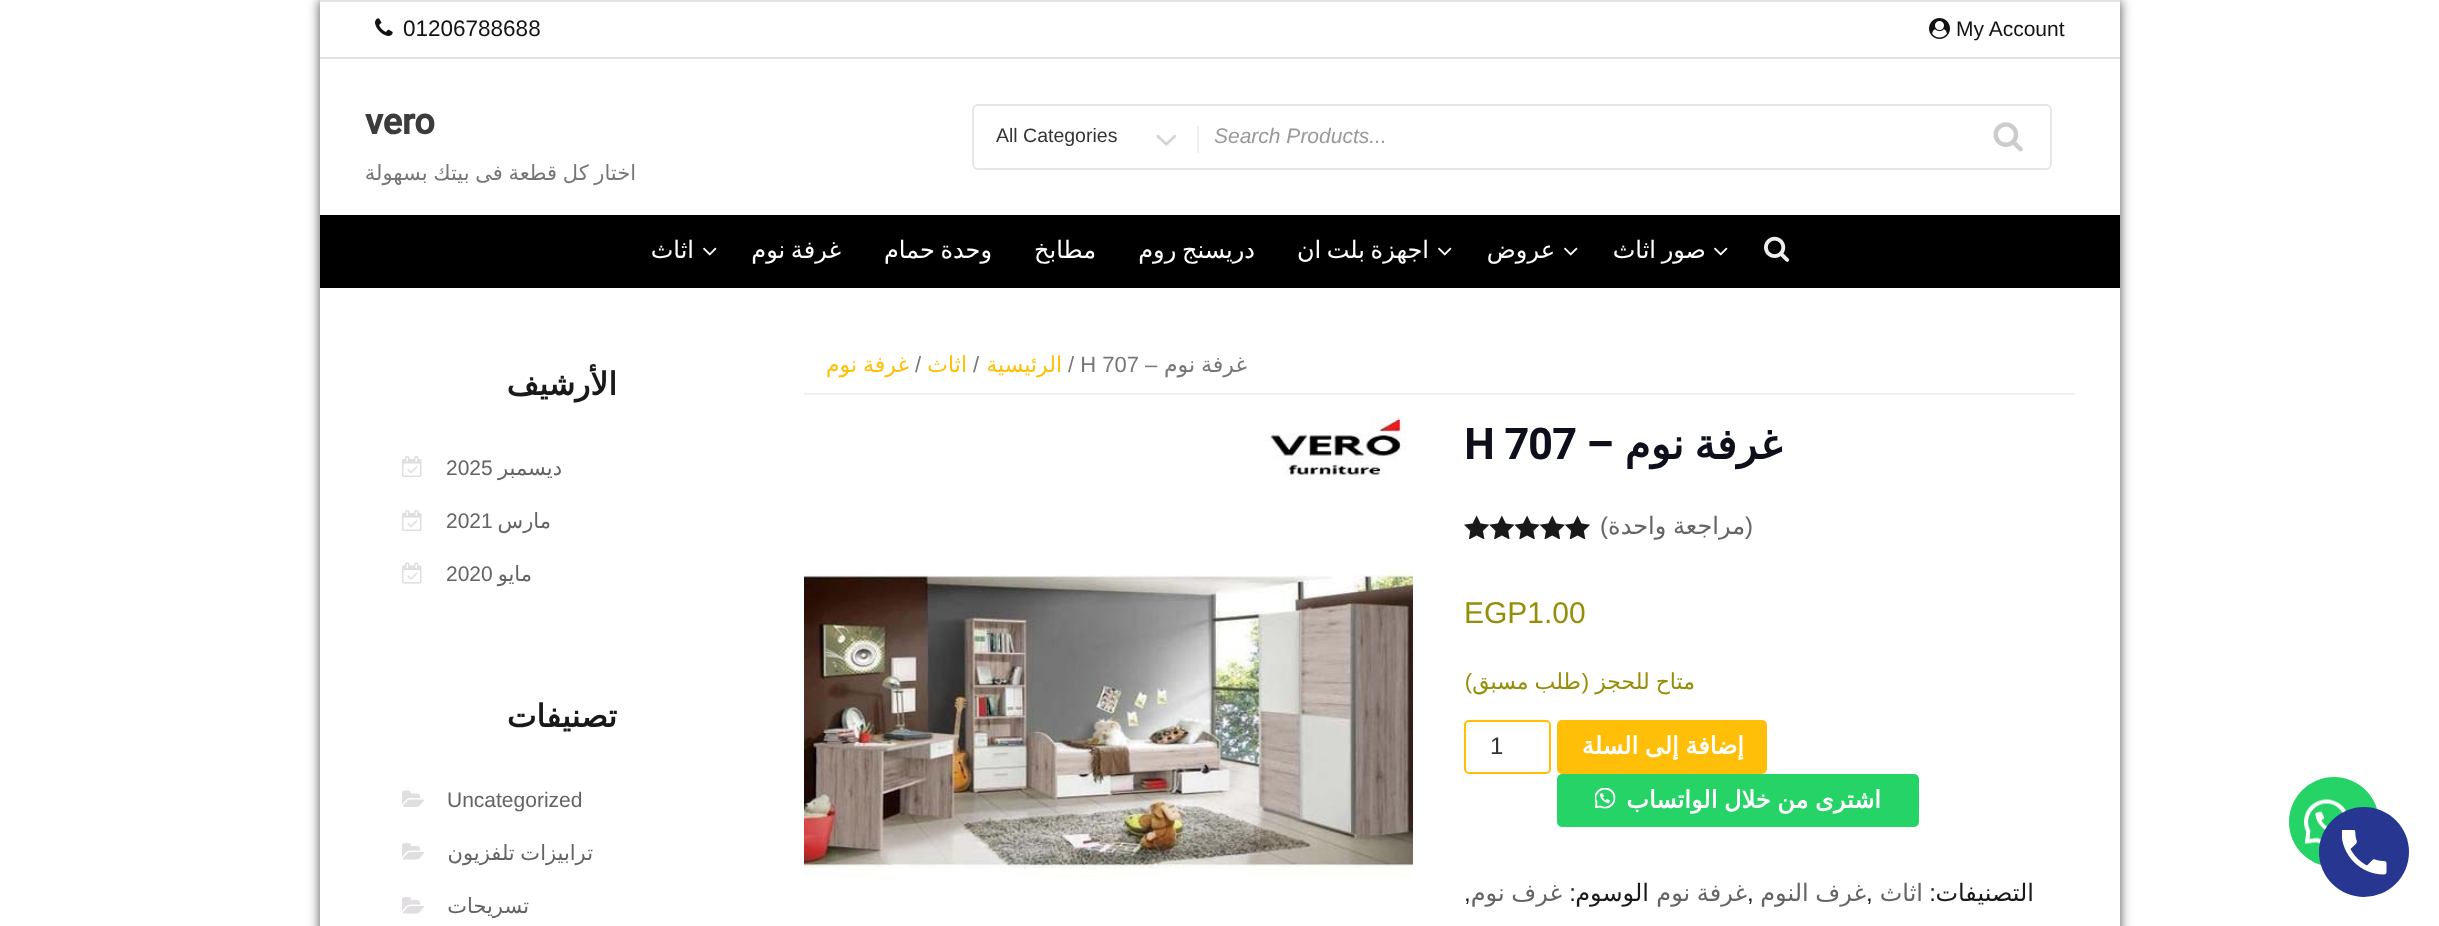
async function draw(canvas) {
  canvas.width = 2439
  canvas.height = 926
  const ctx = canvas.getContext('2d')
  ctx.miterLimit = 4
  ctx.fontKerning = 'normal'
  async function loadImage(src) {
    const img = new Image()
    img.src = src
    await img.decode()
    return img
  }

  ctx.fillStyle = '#fff'
  ctx.fillRect(0, 0, 2439, 926)
  ctx.fillStyle = '#000000b3'
  ctx.filter = 'blur(6px)'
  ctx.beginPath()
  ctx.rect(320, 0, 1800, 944)
  ctx.fill()
  ctx.filter = 'none'
  ctx.fillStyle = '#fff'
  ctx.fillRect(320, 2, 1800, 924)
  ctx.fillStyle = '#e1e6e4'
  ctx.fillRect(320, 0, 1800, 2)
  ctx.fillRect(320, 57, 1800, 2)
  ctx.font = '21px Liberation Sans'
  ctx.fillStyle = '#121212'
  ctx.fillText('My Account', 1956, 36)
  ctx.drawImage(await loadImage('image0.png'), 1929, 18, 21, 21)
  ctx.font = '22.5px Liberation Sans'
  ctx.fillText('01206788688', 403, 36)
  ctx.drawImage(await loadImage('image1.png'), 375, 18, 18, 18)
  ctx.beginPath()
  ctx.roundRect(973, 105, 1078, 64, 5)
  ctx.strokeStyle = '#e6e6e6'
  ctx.lineWidth = 2
  ctx.stroke()
  ctx.drawImage(await loadImage('image2.png'), 1993, 122, 30, 30)
  ctx.font = 'italic 21px Liberation Sans'
  ctx.fillStyle = '#999'
  ctx.fillText('Search Products...', 1214, 143)
  ctx.drawImage(await loadImage('image3.png'), 1156, 135, 20, 11)
  ctx.fillStyle = '#f0f0f0'
  ctx.fillRect(1197, 126, 2, 27)
  ctx.font = '19.5px Liberation Sans'
  ctx.fillStyle = '#333'
  ctx.fillText('All Categories', 996, 142)
  ctx.font = 'bold 36px Roboto'
  ctx.fillStyle = '#3c3c3c'
  ctx.fillText('vero', 365, 134)
  ctx.wordSpacing = '-1px'
  ctx.direction = 'rtl'
  ctx.font = '21px DejaVu Sans'
  ctx.fillStyle = '#777'
  ctx.fillText('اختار كل قطعة فى بيتك بسهولة', 636, 180)
  ctx.fillStyle = '#000'
  ctx.fillRect(320, 215, 1800, 73)
  ctx.drawImage(await loadImage('image4.png'), 1764, 236, 25, 26)
  ctx.drawImage(await loadImage('image5.png'), 1714, 247, 14, 9)
  ctx.wordSpacing = '-2px'
  ctx.font = '24px DejaVu Sans'
  ctx.fillStyle = '#fff'
  ctx.fillText('صور اثاث', 1706, 258)
  ctx.drawImage(await loadImage('image5.png'), 1564, 247, 14, 9)
  ctx.wordSpacing = '0px'
  ctx.fillText('عروض', 1555, 258)
  ctx.drawImage(await loadImage('image5.png'), 1438, 247, 14, 9)
  ctx.wordSpacing = '-2px'
  ctx.fillText('اجهزة بلت ان', 1429, 258)
  ctx.fillText('دريسنج روم', 1255, 258)
  ctx.wordSpacing = '0px'
  ctx.fillText('مطابخ', 1096, 258)
  ctx.wordSpacing = '-2px'
  ctx.fillText('وحدة حمام', 992, 258)
  ctx.fillText('غرفة نوم', 841, 258)
  ctx.drawImage(await loadImage('image5.png'), 703, 247, 14, 9)
  ctx.wordSpacing = '0px'
  ctx.fillText('اثاث', 694, 258)
  ctx.fillStyle = '#25d366'
  ctx.beginPath()
  ctx.arc(2334, 822, 45, 0, 2 * Math.PI)
  ctx.fill()
  ctx.drawImage(await loadImage('image6.png'), 2304, 799, 43, 45)
  ctx.fillStyle = '#f2efef'
  ctx.fillRect(804, 393, 1271, 2)
  ctx.wordSpacing = '-1px'
  ctx.font = '22px DejaVu Sans'
  ctx.fillStyle = '#777'
  ctx.fillText('غرفة نوم', 1247, 372)
  ctx.wordSpacing = '0px'
  ctx.direction = 'ltr'
  ctx.font = '22px Liberation Sans'
  ctx.fillText('/ H 707 –', 1068, 372)
  ctx.direction = 'rtl'
  ctx.font = '22px DejaVu Sans'
  ctx.fillStyle = '#ffbf08'
  ctx.fillText('الرئيسية', 1062, 372)
  ctx.direction = 'ltr'
  ctx.font = '22px Liberation Sans'
  ctx.fillStyle = '#777'
  ctx.fillText('/', 973, 372)
  ctx.direction = 'rtl'
  ctx.font = '22px DejaVu Sans'
  ctx.fillStyle = '#ffbf08'
  ctx.fillText('اثاث', 967, 372)
  ctx.direction = 'ltr'
  ctx.font = '22px Liberation Sans'
  ctx.fillStyle = '#777'
  ctx.fillText('/', 915, 372)
  ctx.wordSpacing = '-1px'
  ctx.direction = 'rtl'
  ctx.font = '22px DejaVu Sans'
  ctx.fillStyle = '#ffbf08'
  ctx.fillText('غرفة نوم', 909, 372)
  ctx.wordSpacing = '-3px'
  ctx.font = 'bold 42px DejaVu Sans'
  ctx.fillStyle = '#0d0f1a'
  ctx.fillText('غرفة نوم', 1782, 459)
  ctx.wordSpacing = '0px'
  ctx.direction = 'ltr'
  ctx.font = 'bold 42px Roboto'
  ctx.fillText('H 707 –', 1464, 459)
  ctx.font = '24px Liberation Sans'
  ctx.fillStyle = '#656464'
  ctx.fillText(')', 1745, 534)
  ctx.wordSpacing = '-1px'
  ctx.direction = 'rtl'
  ctx.font = '24px DejaVu Sans'
  ctx.fillText('مراجعة واحدة', 1745, 534)
  ctx.wordSpacing = '0px'
  ctx.direction = 'ltr'
  ctx.font = '24px Liberation Sans'
  ctx.fillText('(', 1600, 534)
  ctx.drawImage(await loadImage('image8.png'), 1464, 516, 126, 23)
  ctx.drawImage(await loadImage('image7.png'), 1464, 515, 126, 24)
  ctx.font = '30px Liberation Sans'
  ctx.fillStyle = '#958e09'
  ctx.fillText('EGP1.00', 1464, 623)
  ctx.wordSpacing = '-1px'
  ctx.direction = 'rtl'
  ctx.font = '22px DejaVu Sans'
  ctx.fillText('متاح للحجز', 1695, 689)
  ctx.wordSpacing = '0px'
  ctx.font = '22px Liberation Sans'
  ctx.fillText('(', 1589, 689)
  ctx.wordSpacing = '-1px'
  ctx.font = '22px DejaVu Sans'
  ctx.fillText('طلب مسبق', 1581, 689)
  ctx.wordSpacing = '0px'
  ctx.font = '22px Liberation Sans'
  ctx.fillText(')', 1472, 689)
  ctx.fillStyle = '#ffbf08'
  ctx.beginPath()
  ctx.roundRect(1557, 720, 210, 54, 5)
  ctx.fill()
  ctx.wordSpacing = '-1px'
  ctx.font = 'bold 24px DejaVu Sans'
  ctx.fillStyle = '#fff'
  ctx.fillText('إضافة إلى السلة', 1744, 754)
  ctx.beginPath()
  ctx.roundRect(1465, 721, 85, 52, 4)
  ctx.strokeStyle = '#ffbf08'
  ctx.stroke()
  ctx.wordSpacing = '0px'
  ctx.direction = 'ltr'
  ctx.font = '24px Liberation Sans'
  ctx.fillStyle = '#333'
  ctx.fillText('1', 1490, 754)
  ctx.fillStyle = '#25d366'
  ctx.beginPath()
  ctx.roundRect(1557, 774, 362, 53, 5)
  ctx.fill()
  ctx.wordSpacing = '-1px'
  ctx.direction = 'rtl'
  ctx.font = 'bold 24px DejaVu Sans'
  ctx.fillStyle = '#fff'
  ctx.fillText('اشترى من خلال الواتساب', 1881, 808)
  ctx.drawImage(await loadImage('image9.png'), 1595, 788, 21, 21)
  ctx.wordSpacing = '0px'
  ctx.font = '24px DejaVu Sans'
  ctx.fillStyle = '#191919'
  ctx.fillText('التصنيفات', 2034, 901)
  ctx.font = '24px Liberation Sans'
  ctx.fillText(':', 1936, 901)
  ctx.font = '24px DejaVu Sans'
  ctx.fillStyle = '#656464'
  ctx.fillText('اثاث', 1923, 901)
  ctx.direction = 'ltr'
  ctx.font = '24px Liberation Sans'
  ctx.fillStyle = '#191919'
  ctx.fillText(',', 1866, 901)
  ctx.wordSpacing = '-1px'
  ctx.direction = 'rtl'
  ctx.font = '24px DejaVu Sans'
  ctx.fillStyle = '#656464'
  ctx.fillText('غرف النوم', 1866, 901)
  ctx.wordSpacing = '0px'
  ctx.direction = 'ltr'
  ctx.font = '24px Liberation Sans'
  ctx.fillStyle = '#191919'
  ctx.fillText(',', 1747, 901)
  ctx.wordSpacing = '-1px'
  ctx.direction = 'rtl'
  ctx.font = '24px DejaVu Sans'
  ctx.fillStyle = '#656464'
  ctx.fillText('غرفة نوم', 1747, 901)
  ctx.wordSpacing = '0px'
  ctx.fillStyle = '#191919'
  ctx.fillText('الوسوم', 1649, 901)
  ctx.font = '24px Liberation Sans'
  ctx.fillText(':', 1576, 901)
  ctx.wordSpacing = '-1px'
  ctx.font = '24px DejaVu Sans'
  ctx.fillStyle = '#656464'
  ctx.fillText('غرف نوم', 1562, 901)
  ctx.wordSpacing = '0px'
  ctx.direction = 'ltr'
  ctx.font = '24px Liberation Sans'
  ctx.fillStyle = '#191919'
  ctx.fillText(',', 1464, 901)
  ctx.drawImage(await loadImage('image10.png'), 804, 416, 609, 461)
  ctx.direction = 'rtl'
  ctx.font = 'bold 31.5px DejaVu Sans'
  ctx.fillText('الأرشيف', 617, 395)
  ctx.font = '21px DejaVu Sans'
  ctx.fillStyle = '#656464'
  ctx.fillText('ديسمبر', 562, 475)
  ctx.direction = 'ltr'
  ctx.font = '21px Liberation Sans'
  ctx.fillText('2025', 446, 475)
  ctx.drawImage(await loadImage('image11.png'), 402, 456, 20, 21)
  ctx.direction = 'rtl'
  ctx.font = '21px DejaVu Sans'
  ctx.fillText('مارس', 551, 528)
  ctx.direction = 'ltr'
  ctx.font = '21px Liberation Sans'
  ctx.fillText('2021', 446, 528)
  ctx.drawImage(await loadImage('image11.png'), 402, 510, 20, 21)
  ctx.direction = 'rtl'
  ctx.font = '21px DejaVu Sans'
  ctx.fillText('مايو', 532, 581)
  ctx.direction = 'ltr'
  ctx.font = '21px Liberation Sans'
  ctx.fillText('2020', 446, 581)
  ctx.drawImage(await loadImage('image12.png'), 402, 562, 20, 22)
  ctx.direction = 'rtl'
  ctx.font = 'bold 31.5px DejaVu Sans'
  ctx.fillStyle = '#191919'
  ctx.fillText('تصنيفات', 617, 727)
  ctx.direction = 'ltr'
  ctx.font = '21px Liberation Sans'
  ctx.fillStyle = '#656464'
  ctx.fillText('Uncategorized', 447, 807)
  ctx.drawImage(await loadImage('image13.png'), 402, 790, 22, 17)
  ctx.wordSpacing = '-1px'
  ctx.direction = 'rtl'
  ctx.font = '21px DejaVu Sans'
  ctx.fillText('ترابيزات تلفزيون', 593, 860)
  ctx.drawImage(await loadImage('image14.png'), 402, 843, 22, 17)
  ctx.wordSpacing = '0px'
  ctx.fillText('تسريحات', 529, 913)
  ctx.drawImage(await loadImage('image14.png'), 402, 897, 22, 17)
  ctx.fillStyle = '#263691'
  ctx.beginPath()
  ctx.arc(2364, 852, 45, 0, 2 * Math.PI)
  ctx.fill()
  ctx.drawImage(await loadImage('image15.png'), 2342, 830, 45, 45)
}

draw(document.querySelector('canvas'))
